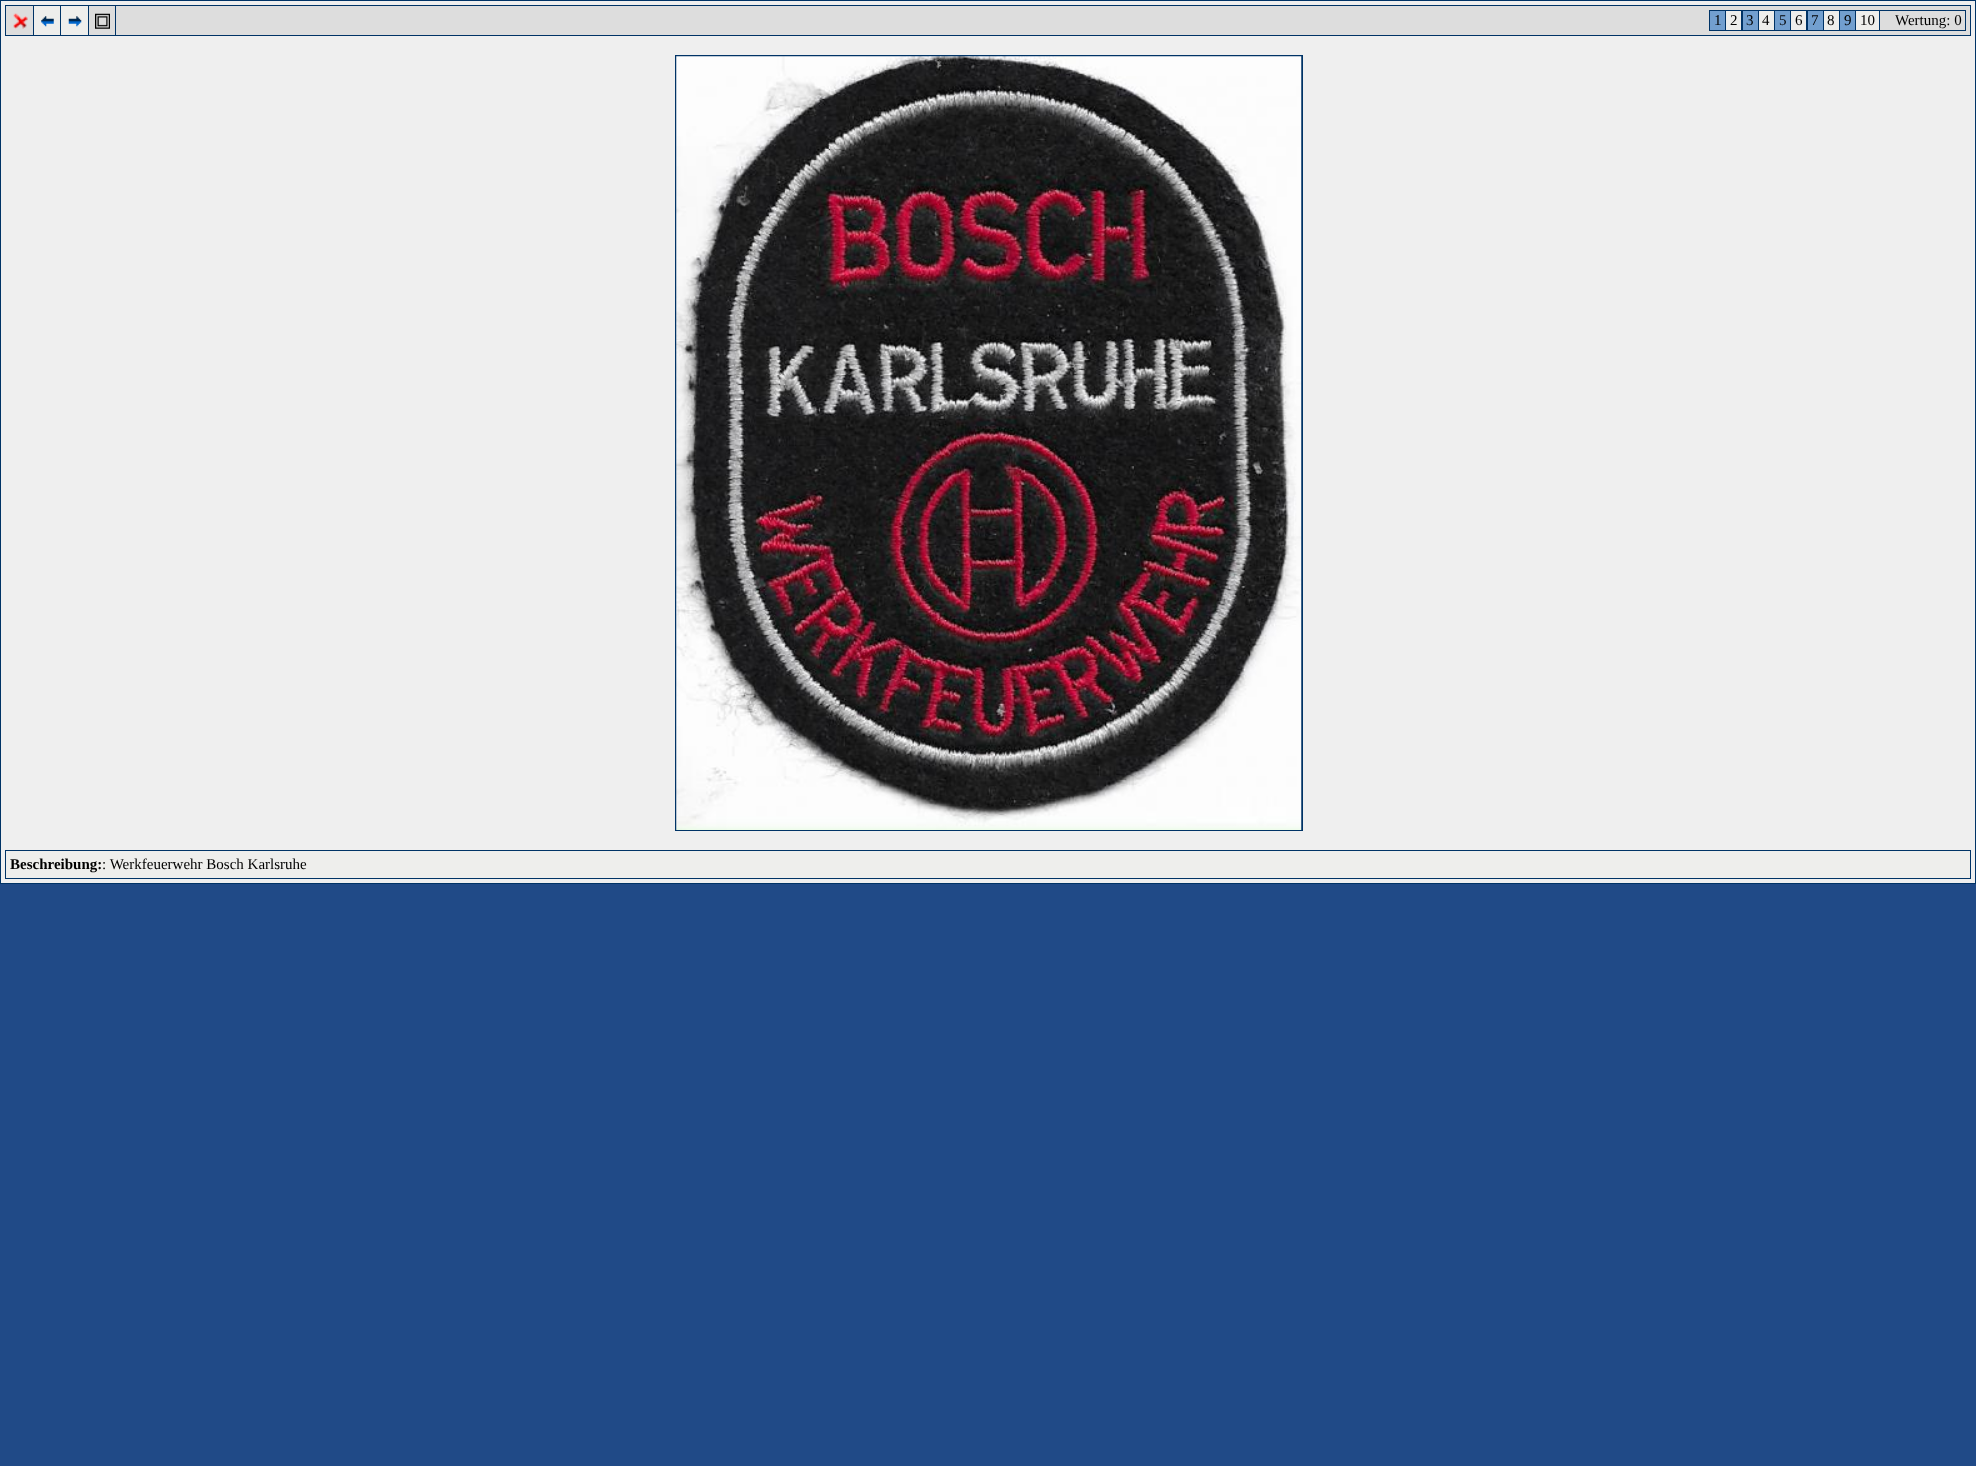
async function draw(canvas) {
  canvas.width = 1976
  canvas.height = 1466
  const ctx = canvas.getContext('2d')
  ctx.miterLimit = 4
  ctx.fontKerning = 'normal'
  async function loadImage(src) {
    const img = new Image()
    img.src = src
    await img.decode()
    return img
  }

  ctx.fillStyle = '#204a87'
  ctx.fillRect(0, 0, 1976, 1466)
  ctx.fillStyle = '#036'
  ctx.fillRect(0, 0, 1976, 884)
  ctx.fillStyle = '#efefef'
  ctx.fillRect(1, 1, 1974, 882)
  ctx.fillStyle = '#036'
  ctx.fillRect(5, 5, 1966, 31)
  ctx.fillStyle = '#ddd'
  ctx.fillRect(6, 6, 27, 29)
  ctx.drawImage(await loadImage('image0.png'), 13, 13, 15, 16)
  ctx.fillStyle = '#eeeeec'
  ctx.fillRect(34, 6, 26, 29)
  ctx.drawImage(await loadImage('image1.png'), 41, 16, 13, 11)
  ctx.fillRect(61, 6, 27, 29)
  ctx.drawImage(await loadImage('image2.png'), 68, 16, 14, 11)
  ctx.fillStyle = '#ddd'
  ctx.fillRect(89, 6, 26, 29)
  ctx.drawImage(await loadImage('image3.png'), 95, 13, 15, 16)
  ctx.fillRect(116, 6, 1854, 29)
  ctx.fillStyle = '#036'
  ctx.fillRect(1709, 10, 257, 21)
  ctx.fillStyle = '#729fcf'
  ctx.fillRect(1710, 11, 15, 19)
  ctx.font = '15px Liberation Serif'
  ctx.fillStyle = '#000'
  ctx.fillText('1', 1714, 25)
  ctx.fillStyle = '#eeeeec'
  ctx.fillRect(1726, 11, 15, 19)
  ctx.fillStyle = '#000'
  ctx.fillText('2', 1730, 25)
  ctx.fillStyle = '#729fcf'
  ctx.fillRect(1743, 11, 15, 19)
  ctx.fillStyle = '#000'
  ctx.fillText('3', 1746, 25)
  ctx.fillStyle = '#eeeeec'
  ctx.fillRect(1759, 11, 15, 19)
  ctx.fillStyle = '#000'
  ctx.fillText('4', 1762, 25)
  ctx.fillStyle = '#729fcf'
  ctx.fillRect(1775, 11, 15, 19)
  ctx.fillStyle = '#000'
  ctx.fillText('5', 1779, 25)
  ctx.fillStyle = '#eeeeec'
  ctx.fillRect(1791, 11, 15, 19)
  ctx.fillStyle = '#000'
  ctx.fillText('6', 1795, 25)
  ctx.fillStyle = '#729fcf'
  ctx.fillRect(1808, 11, 15, 19)
  ctx.fillStyle = '#000'
  ctx.fillText('7', 1811, 25)
  ctx.fillStyle = '#eeeeec'
  ctx.fillRect(1824, 11, 15, 19)
  ctx.fillStyle = '#000'
  ctx.fillText('8', 1827, 25)
  ctx.fillStyle = '#729fcf'
  ctx.fillRect(1840, 11, 15, 19)
  ctx.fillStyle = '#000'
  ctx.fillText('9', 1844, 25)
  ctx.fillStyle = '#eeeeec'
  ctx.fillRect(1856, 11, 23, 19)
  ctx.fillStyle = '#000'
  ctx.fillText('10', 1860, 25)
  ctx.fillStyle = '#ddd'
  ctx.fillRect(1880, 11, 85, 19)
  ctx.fillStyle = '#000'
  ctx.fillText('Wertung: 0', 1895, 25)
  ctx.fillStyle = '#036'
  ctx.fillRect(675, 55, 628, 776)
  ctx.drawImage(await loadImage('image4.png'), 676, 56, 626, 774)
  ctx.fillRect(5, 850, 1966, 29)
  ctx.fillStyle = '#eeeeec'
  ctx.fillRect(6, 851, 1964, 27)
  ctx.font = 'bold 15px Liberation Serif'
  ctx.fillStyle = '#000'
  ctx.fillText('Beschreibung:', 10, 869)
  ctx.font = '15px Liberation Serif'
  ctx.fillText(': Werkfeuerwehr Bosch Karlsruhe', 102, 869)
}

draw(document.querySelector('canvas'))
